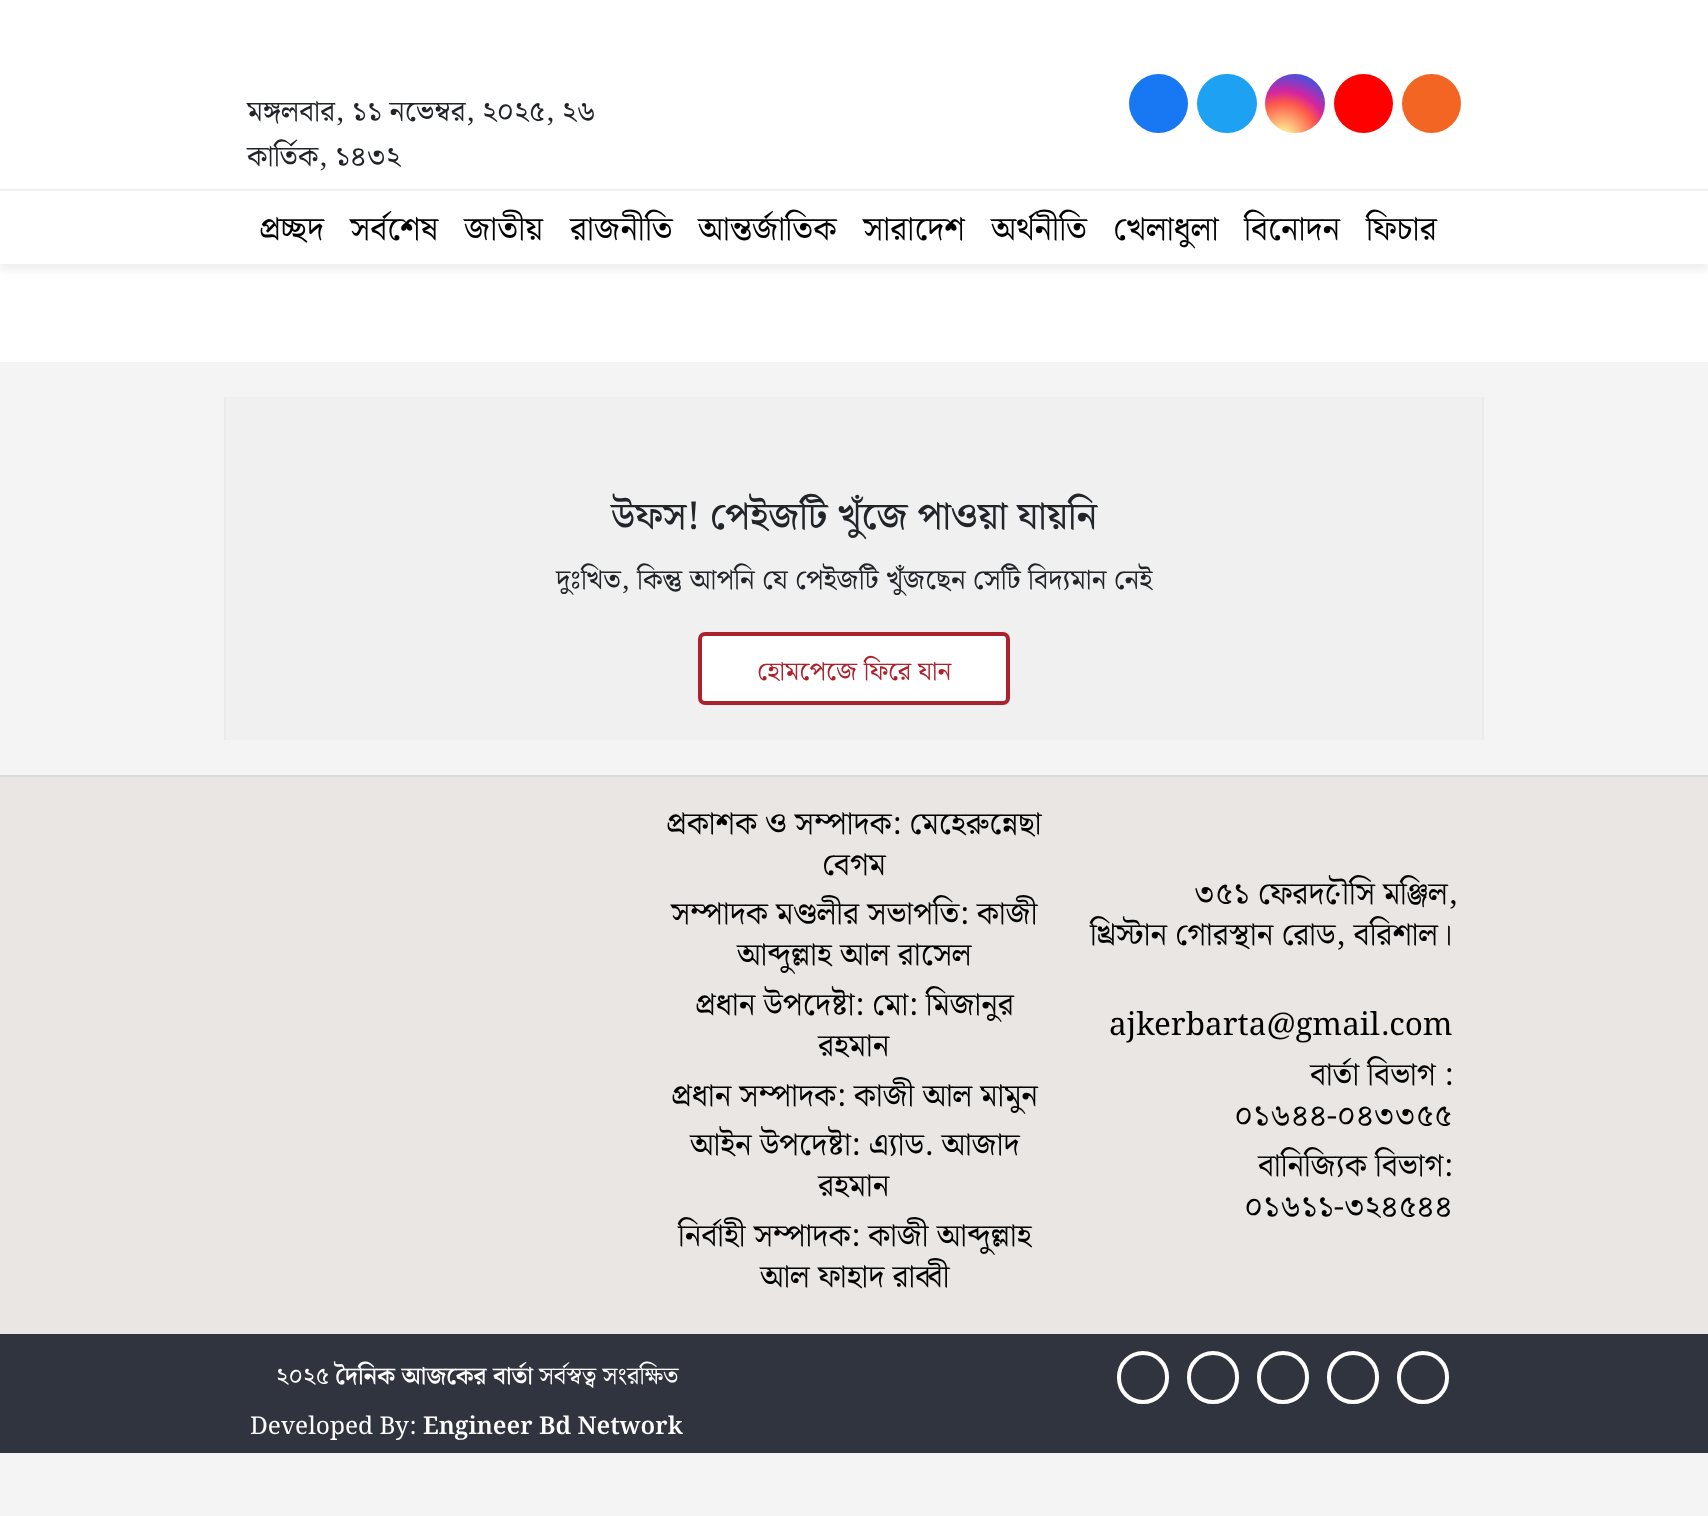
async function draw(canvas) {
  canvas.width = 1708
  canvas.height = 1516
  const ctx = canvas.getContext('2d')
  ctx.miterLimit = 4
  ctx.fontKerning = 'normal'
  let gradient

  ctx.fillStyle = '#f4f4f4'
  ctx.fillRect(0, 0, 1708, 1516)
  ctx.fillStyle = '#fff'
  ctx.fillRect(0, 0, 1708, 189)
  ctx.font = '29px Noto Serif Bengali'
  ctx.fillStyle = '#212428'
  ctx.fillText('মঙ্গলবার, ১১ নভেম্বর, ২০২৫,', 247, 121)
  ctx.fillText('২৬', 562, 121)
  ctx.fillText('কার্তিক, ১৪৩২', 247, 166)
  ctx.fillStyle = '#1877f2'
  ctx.beginPath()
  ctx.arc(1158.5, 103.5, 29.5, 0, 2 * Math.PI)
  ctx.fill()
  ctx.fillStyle = '#1da1f2'
  ctx.beginPath()
  ctx.roundRect(1197, 74, 60, 59, 29.5)
  ctx.fill()
  gradient = ctx.createRadialGradient(1283, 137, 0, 1283, 137, 76)
  gradient.addColorStop(0, '#fdf497')
  gradient.addColorStop(0.05, '#fdf497')
  gradient.addColorStop(0.45, '#fd5949')
  gradient.addColorStop(0.6, '#d6249f')
  gradient.addColorStop(0.9, '#285aeb')
  ctx.fillStyle = gradient
  ctx.beginPath()
  ctx.roundRect(1265, 74, 60, 59, 29.5)
  ctx.fill()
  ctx.fillStyle = '#f00'
  ctx.beginPath()
  ctx.arc(1363.5, 103.5, 29.5, 0, 2 * Math.PI)
  ctx.fill()
  ctx.fillStyle = '#f26522'
  ctx.beginPath()
  ctx.arc(1431.5, 103.5, 29.5, 0, 2 * Math.PI)
  ctx.fill()
  ctx.fillStyle = '#fff'
  ctx.fillRect(0, 264, 1708, 98)
  ctx.fillStyle = '#eee'
  ctx.filter = 'blur(4.5px)'
  ctx.beginPath()
  ctx.rect(0, 194, 1708, 76)
  ctx.fill()
  ctx.filter = 'none'
  ctx.fillStyle = '#fff'
  ctx.fillRect(0, 191, 1708, 73)
  ctx.fillStyle = '#eee'
  ctx.fillRect(0, 189, 1708, 2)
  ctx.font = '33.25px Noto Serif Bengali'
  ctx.fillStyle = '#000'
  ctx.fillText('প্রচ্ছদ', 259, 240)
  ctx.fillText('সর্বশেষ', 350, 240)
  ctx.fillText('জাতীয়', 464, 240)
  ctx.fillText('রাজনীতি', 570, 240)
  ctx.fillText('আন্তর্জাতিক', 698, 240)
  ctx.fillText('সারাদেশ', 863, 240)
  ctx.fillText('অর্থনীতি', 991, 240)
  ctx.fillText('খেলাধুলা', 1113, 240)
  ctx.fillText('বিনোদন', 1244, 240)
  ctx.fillText('ফিচার', 1366, 240)
  ctx.fillStyle = '#f0f0f0'
  ctx.fillRect(226, 397, 1256, 343)
  ctx.fillStyle = '#eaeaea'
  ctx.fillRect(1482, 397, 2, 343)
  ctx.fillRect(224, 397, 2, 343)
  ctx.font = '500 38.5px Noto Serif Bengali'
  ctx.fillStyle = '#212428'
  ctx.fillText('উফস! পেইজটি খুঁজে পাওয়া যায়নি', 611, 529)
  ctx.font = '28px Noto Serif Bengali'
  ctx.fillText('দুঃখিত, কিন্তু আপনি যে পেইজটি খুঁজছেন সেটি বিদ্যমান নেই', 556, 589)
  ctx.fillStyle = '#fff'
  ctx.beginPath()
  ctx.roundRect(700, 634, 308, 69, 5)
  ctx.fill()
  ctx.strokeStyle = '#ac222c'
  ctx.lineWidth = 4
  ctx.stroke()
  ctx.font = '26.25px Noto Serif Bengali'
  ctx.fillStyle = '#ac222c'
  ctx.fillText('হোমপেজে ফিরে যান', 757, 680)
  ctx.fillStyle = '#eae6e3'
  ctx.fillRect(0, 777, 1708, 557)
  ctx.fillStyle = '#dadada'
  ctx.fillRect(0, 775, 1708, 2)
  ctx.font = '31.5px Noto Serif Bengali'
  ctx.fillStyle = '#000'
  ctx.fillText('প্রকাশক ও সম্পাদক: মেহেরুন্নেছা', 666, 834)
  ctx.fillText('বেগম', 822, 875)
  ctx.fillText('সম্পাদক মণ্ডলীর সভাপতি: কাজী', 671, 924)
  ctx.fillText('আব্দুল্লাহ আল রাসেল', 737, 965)
  ctx.fillText('প্রধান উপদেষ্টা: মো: মিজানুর', 695, 1015)
  ctx.fillText('রহমান', 818, 1056)
  ctx.fillText('প্রধান সম্পাদক: কাজী আল মামুন', 671, 1106)
  ctx.fillText('আইন উপদেষ্টা: এ্যাড. আজাদ', 690, 1155)
  ctx.fillText('রহমান', 818, 1196)
  ctx.fillText('নির্বাহী সম্পাদক: কাজী আব্দুল্লাহ', 678, 1246)
  ctx.fillText('আল ফাহাদ রাব্বী', 760, 1287)
  ctx.fillText('৩৫১ ফেরদৌসি মঞ্জিল,', 1194, 904)
  ctx.fillText('খ্রিস্টান গোরস্থান রোড, বরিশাল।', 1090, 945)
  ctx.fillText('ajkerbarta@gmail.com', 1109, 1035)
  ctx.fillText('বার্তা বিভাগ :', 1310, 1085)
  ctx.fillText('০১৬৪৪-০৪৩৩৫৫', 1234, 1126)
  ctx.fillText('বানিজ্যিক বিভাগ:', 1258, 1176)
  ctx.fillText('০১৬১১-৩২৪৫৪৪', 1244, 1217)
  ctx.fillStyle = '#2f343f'
  ctx.fillRect(0, 1334, 1708, 119)
  ctx.font = '24.5px Noto Serif Bengali'
  ctx.fillStyle = '#fff'
  ctx.fillText('২০২৫', 276, 1384)
  ctx.font = '600 24.5px Noto Serif Bengali'
  ctx.fillText('দৈনিক আজকের বার্তা', 335, 1384)
  ctx.font = '24.5px Noto Serif Bengali'
  ctx.fillText('সর্বস্বত্ব সংরক্ষিত', 539, 1384)
  ctx.beginPath()
  ctx.roundRect(1119, 1353, 48, 49, 24)
  ctx.strokeStyle = '#fff'
  ctx.stroke()
  ctx.beginPath()
  ctx.roundRect(1189, 1353, 48, 49, 24)
  ctx.stroke()
  ctx.beginPath()
  ctx.roundRect(1259, 1353, 48, 49, 24)
  ctx.stroke()
  ctx.beginPath()
  ctx.roundRect(1329, 1353, 48, 49, 24)
  ctx.stroke()
  ctx.beginPath()
  ctx.roundRect(1399, 1353, 48, 49, 24)
  ctx.stroke()
  ctx.fillText('Developed By:', 250, 1434)
  ctx.font = '600 24.5px Noto Serif Bengali'
  ctx.fillText('Engineer Bd Network', 423, 1434)
}

draw(document.querySelector('canvas'))
